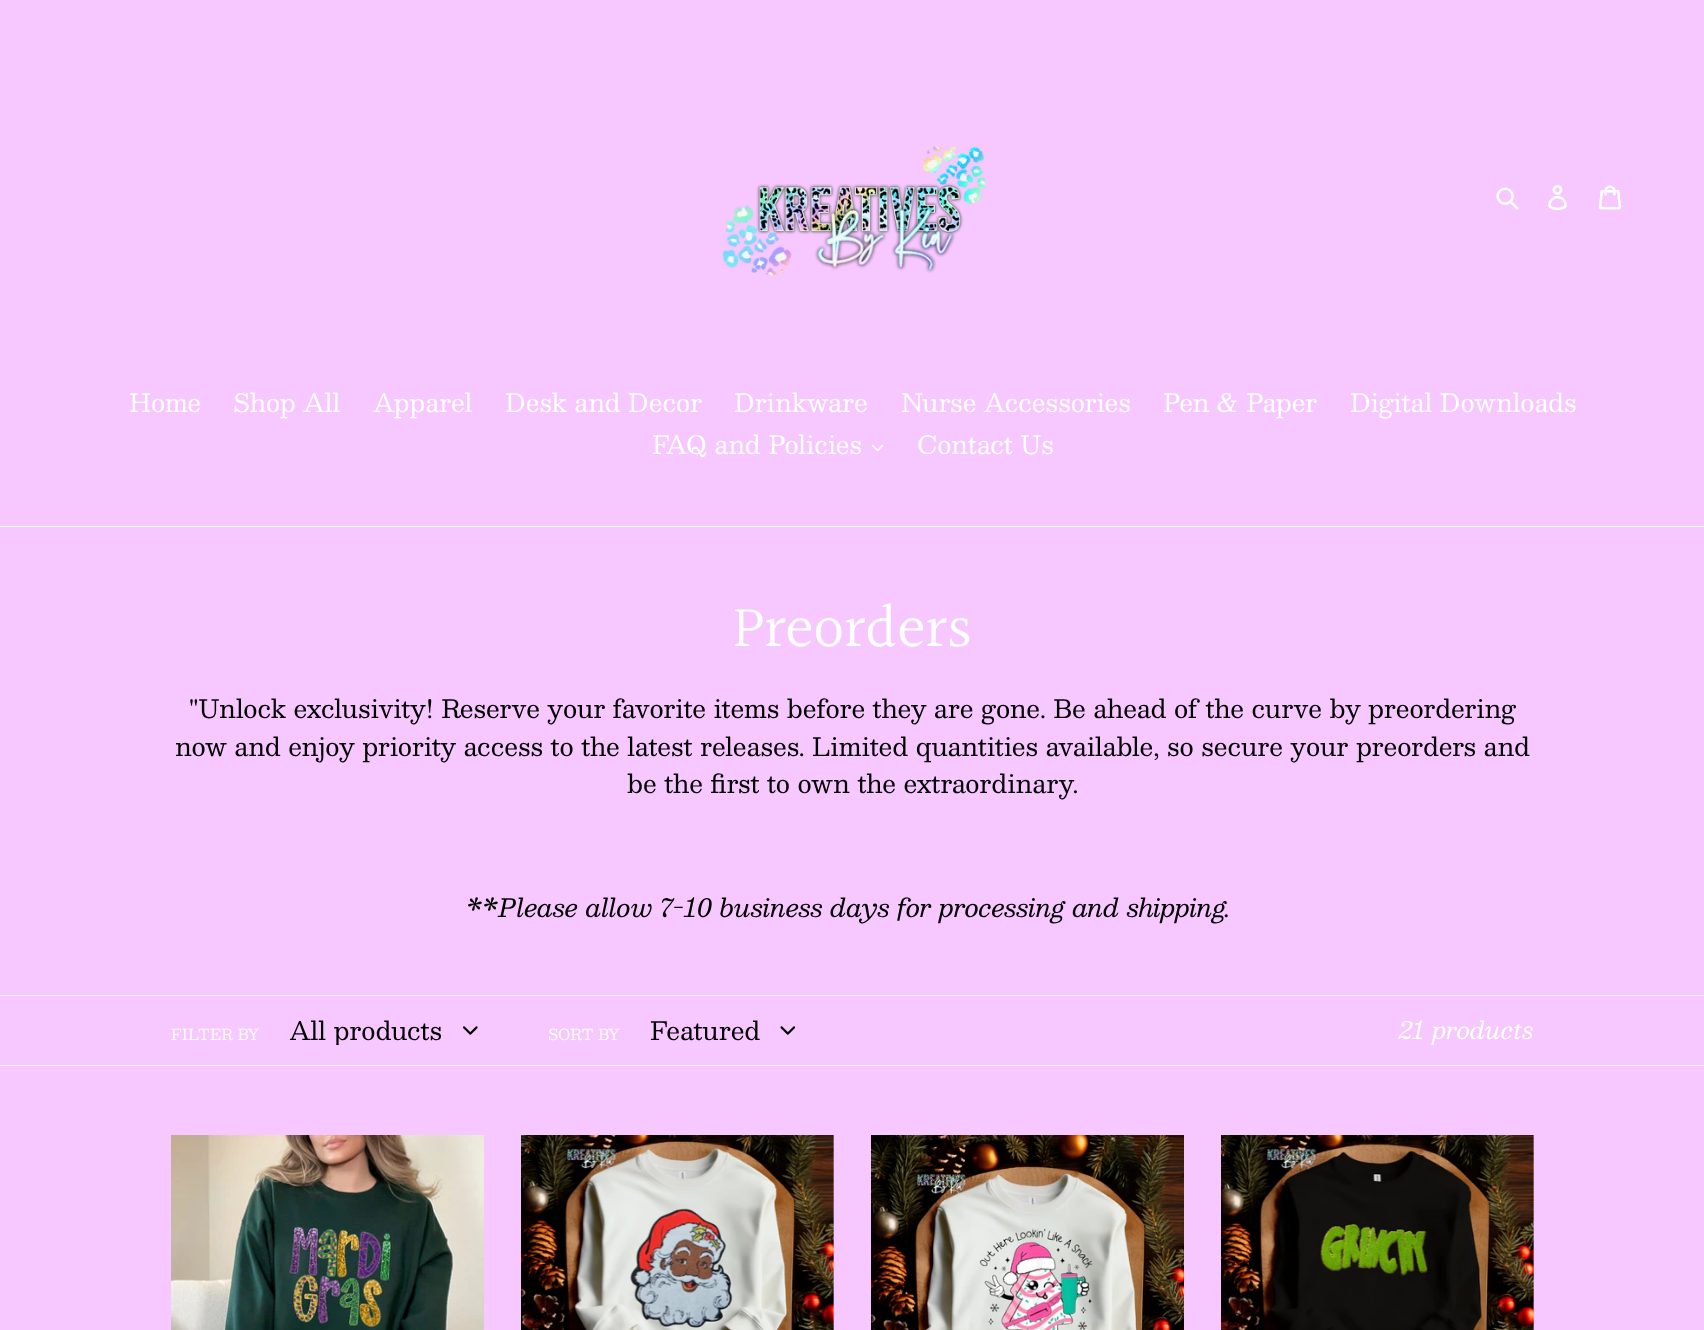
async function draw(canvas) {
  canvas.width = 1704
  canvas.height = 1330
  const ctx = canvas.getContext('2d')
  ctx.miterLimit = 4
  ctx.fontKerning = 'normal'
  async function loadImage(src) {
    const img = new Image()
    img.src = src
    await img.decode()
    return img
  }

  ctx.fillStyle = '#f7c7ff'
  ctx.fillRect(0, 0, 1704, 1330)
  ctx.drawImage(await loadImage('image0.png'), 722, 146, 265, 131)
  ctx.drawImage(await loadImage('image1.png'), 1496, 187, 23, 23)
  ctx.drawImage(await loadImage('image2.png'), 1548, 185, 19, 25)
  ctx.drawImage(await loadImage('image3.png'), 1598, 185, 24, 25)
  ctx.fillStyle = '#fff'
  ctx.fillRect(0, 526, 1704, 1)
  ctx.font = '25px Besley'
  ctx.fillText('Home', 129, 412)
  ctx.fillText('Shop All', 233, 412)
  ctx.fillText('Apparel', 373, 412)
  ctx.fillText('Desk and Decor', 505, 412)
  ctx.fillText('Drinkware', 734, 412)
  ctx.fillText('Nurse Accessories', 901, 412)
  ctx.fillText('Pen & Paper', 1163, 412)
  ctx.fillText('Digital Downloads', 1350, 412)
  ctx.fillText('FAQ and Policies', 652, 454)
  ctx.drawImage(await loadImage('image4.png'), 871, 444, 13, 8)
  ctx.fillText('Contact Us', 917, 454)
  ctx.font = '60px Halant'
  ctx.fillText('Preorders', 733, 649)
  ctx.font = '25px Besley'
  ctx.fillStyle = '#000'
  ctx.fillText('"Unlock exclusivity! Reserve your favorite items before they are gone. Be ahead of the curve by preordering', 189, 718)
  ctx.fillText('now and enjoy priority access to the latest releases. Limited quantities available, so secure your preorders and', 175, 756)
  ctx.fillText('be the first to own the extraordinary.', 627, 793)
  ctx.font = 'italic 25px Besley'
  ctx.fillText('**Please allow 7-10 business days for processing and shipping.', 467, 917)
  ctx.fillStyle = '#fff'
  ctx.fillRect(0, 995, 1704, 1)
  ctx.fillRect(0, 1065, 1704, 1)
  ctx.font = '15px Besley'
  ctx.fillText('FILTER BY', 171, 1040)
  ctx.save()
  ctx.beginPath()
  ctx.rect(290, 1015, 164, 30)
  ctx.clip()
  ctx.font = '25px Besley'
  ctx.fillStyle = '#000'
  ctx.fillText('All products', 289, 1040)
  ctx.restore()
  ctx.drawImage(await loadImage('image5.png'), 463, 1026, 15, 9)
  ctx.fillText('SORT BY', 548, 1040)
  ctx.font = '25px Besley'
  ctx.fillStyle = '#000'
  ctx.fillText('Featured', 650, 1040)
  ctx.drawImage(await loadImage('image6.png'), 780, 1026, 16, 9)
  ctx.font = 'italic 23.75px Besley'
  ctx.fillStyle = '#fff'
  ctx.fillText('21 products', 1399, 1039)
  ctx.drawImage(await loadImage('image7.png'), 171, 1135, 313, 195)
  ctx.drawImage(await loadImage('image8.png'), 521, 1135, 313, 195)
  ctx.drawImage(await loadImage('image9.png'), 871, 1135, 313, 195)
  ctx.drawImage(await loadImage('image10.png'), 1221, 1135, 313, 195)
}

draw(document.querySelector('canvas'))
